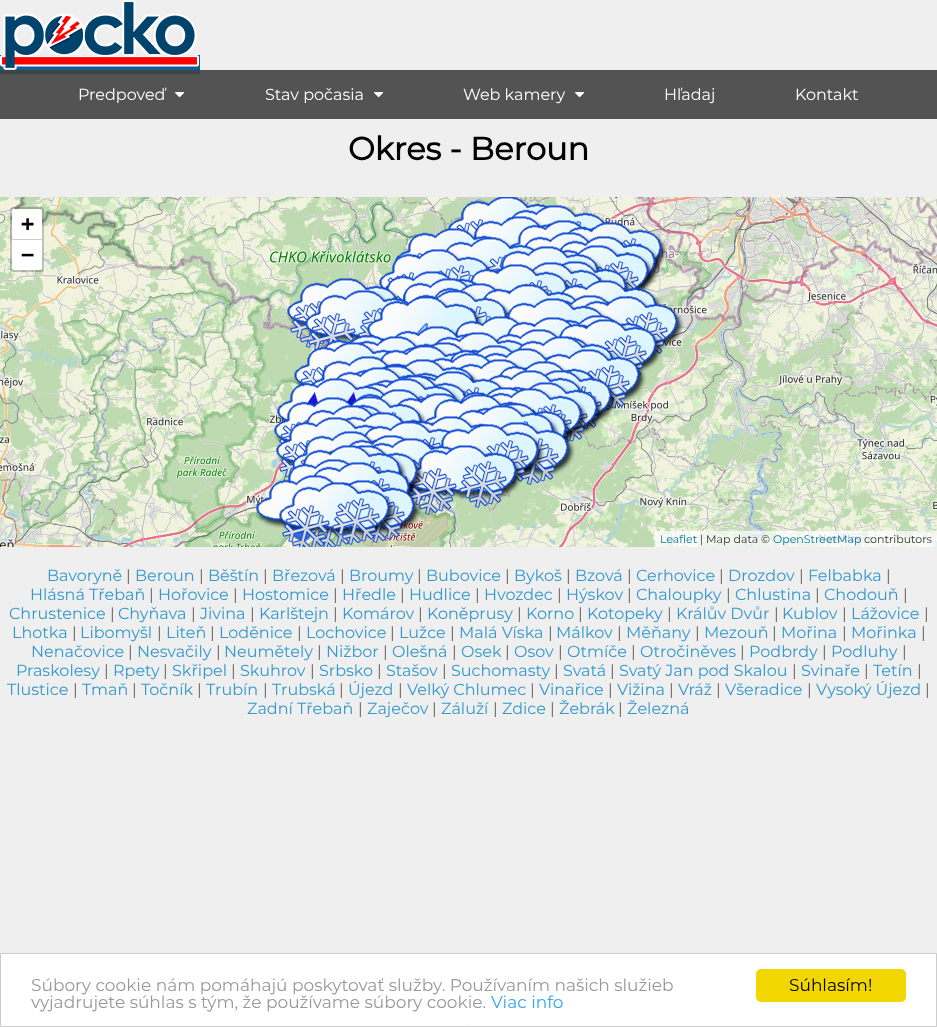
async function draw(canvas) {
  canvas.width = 937
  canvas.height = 1027
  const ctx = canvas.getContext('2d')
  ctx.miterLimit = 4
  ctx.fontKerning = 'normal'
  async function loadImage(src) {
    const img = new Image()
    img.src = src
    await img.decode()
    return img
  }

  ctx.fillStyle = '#efefef'
  ctx.fillRect(0, 0, 937, 1027)
  ctx.fillStyle = '#535353'
  ctx.fillRect(0, 70, 937, 49)
  ctx.fillStyle = '#0c6096'
  ctx.fillRect(0, 55, 200, 15)
  ctx.drawImage(await loadImage('image0.png'), 0, 0, 199, 70)
  ctx.fillStyle = '#3d454a'
  ctx.fillRect(0, 70, 200, 4)
  ctx.font = '100 16px Montserrat'
  ctx.fillStyle = '#fff'
  ctx.fillText('Predpoveď', 78, 100)
  ctx.drawImage(await loadImage('image1.png'), 175, 92, 10, 6)
  ctx.fillText('Stav počasia', 265, 100)
  ctx.drawImage(await loadImage('image1.png'), 374, 92, 10, 6)
  ctx.fillText('Web kamery', 463, 100)
  ctx.drawImage(await loadImage('image1.png'), 575, 92, 10, 6)
  ctx.fillText('Hľadaj', 664, 100)
  ctx.fillText('Kontakt', 795, 100)
  ctx.font = 'bold 32px Montserrat'
  ctx.fillStyle = '#000'
  ctx.fillText('Okres - Beroun', 348, 160)
  ctx.drawImage(await loadImage('image2.png'), 0, 197, 241, 246)
  ctx.drawImage(await loadImage('image3.png'), 241, 197, 256, 246)
  ctx.drawImage(await loadImage('image4.png'), 497, 197, 256, 246)
  ctx.drawImage(await loadImage('image5.png'), 753, 197, 184, 246)
  ctx.drawImage(await loadImage('image6.png'), 0, 443, 241, 104)
  ctx.drawImage(await loadImage('image7.png'), 241, 443, 256, 104)
  ctx.drawImage(await loadImage('image8.png'), 497, 443, 256, 104)
  ctx.drawImage(await loadImage('image9.png'), 753, 443, 184, 104)
  ctx.drawImage(await loadImage('image10.png'), 448, 197, 101, 42)
  ctx.drawImage(await loadImage('image11.png'), 510, 205, 99, 25)
  ctx.drawImage(await loadImage('image12.png'), 473, 216, 80, 32)
  ctx.drawImage(await loadImage('image13.png'), 395, 228, 103, 34)
  ctx.drawImage(await loadImage('image14.png'), 509, 220, 87, 28)
  ctx.drawImage(await loadImage('image15.png'), 568, 222, 100, 57)
  ctx.drawImage(await loadImage('image17.png'), 524, 232, 67, 18)
  ctx.drawImage(await loadImage('image16.png'), 445, 237, 91, 35)
  ctx.drawImage(await loadImage('image18.png'), 559, 236, 103, 54)
  ctx.drawImage(await loadImage('image21.png'), 561, 245, 94, 47)
  ctx.drawImage(await loadImage('image20.png'), 494, 246, 110, 27)
  ctx.drawImage(await loadImage('image19.png'), 379, 249, 116, 41)
  ctx.drawImage(await loadImage('image22.png'), 561, 261, 72, 30)
  ctx.drawImage(await loadImage('image23.png'), 528, 262, 78, 27)
  ctx.drawImage(await loadImage('image26.png'), 470, 264, 103, 31)
  ctx.drawImage(await loadImage('image25.png'), 386, 271, 94, 31)
  ctx.drawImage(await loadImage('image24.png'), 287, 278, 116, 70)
  ctx.drawImage(await loadImage('image27.png'), 401, 278, 69, 26)
  ctx.drawImage(await loadImage('image28.png'), 561, 280, 102, 27)
  ctx.drawImage(await loadImage('image29.png'), 305, 290, 105, 60)
  ctx.drawImage(await loadImage('image30.png'), 434, 283, 78, 18)
  ctx.drawImage(await loadImage('image31.png'), 482, 284, 97, 34)
  ctx.drawImage(await loadImage('image32.png'), 414, 290, 97, 35)
  ctx.drawImage(await loadImage('image33.png'), 559, 295, 52, 14)
  ctx.drawImage(await loadImage('image34.png'), 367, 296, 117, 44)
  ctx.drawImage(await loadImage('image36.png'), 584, 296, 100, 60)
  ctx.drawImage(await loadImage('image35.png'), 507, 298, 101, 28)
  ctx.drawImage(await loadImage('image37.png'), 455, 316, 81, 25)
  ctx.drawImage(await loadImage('image39.png'), 565, 315, 91, 51)
  ctx.drawImage(await loadImage('image38.png'), 507, 317, 82, 21)
  ctx.drawImage(await loadImage('image40.png'), 324, 335, 61, 16)
  ctx.drawImage(await loadImage('image41.png'), 395, 326, 75, 21)
  ctx.drawImage(await loadImage('image44.png'), 559, 319, 104, 58)
  ctx.drawImage(await loadImage('image43.png'), 496, 329, 95, 18)
  ctx.drawImage(await loadImage('image42.png'), 434, 332, 90, 20)
  ctx.drawImage(await loadImage('image46.png'), 358, 336, 75, 17)
  ctx.drawImage(await loadImage('image45.png'), 294, 342, 99, 45)
  ctx.drawImage(await loadImage('image47.png'), 403, 342, 78, 14)
  ctx.drawImage(await loadImage('image48.png'), 517, 336, 101, 24)
  ctx.drawImage(await loadImage('image49.png'), 380, 345, 78, 22)
  ctx.drawImage(await loadImage('image50.png'), 449, 345, 66, 17)
  ctx.drawImage(await loadImage('image51.png'), 484, 348, 72, 21)
  ctx.drawImage(await loadImage('image52.png'), 544, 349, 102, 63)
  ctx.drawImage(await loadImage('image53.png'), 310, 356, 97, 31)
  ctx.drawImage(await loadImage('image54.png'), 431, 353, 92, 17)
  ctx.drawImage(await loadImage('image56.png'), 459, 359, 71, 23)
  ctx.drawImage(await loadImage('image55.png'), 383, 359, 96, 23)
  ctx.drawImage(await loadImage('image57.png'), 499, 361, 100, 20)
  ctx.drawImage(await loadImage('image58.png'), 355, 365, 84, 15)
  ctx.drawImage(await loadImage('image59.png'), 336, 367, 80, 22)
  ctx.drawImage(await loadImage('image62.png'), 544, 370, 74, 63)
  ctx.drawImage(await loadImage('image60.png'), 488, 370, 99, 24)
  ctx.drawImage(await loadImage('image61.png'), 421, 371, 85, 26)
  ctx.drawImage(await loadImage('image64.png'), 375, 375, 95, 28)
  ctx.drawImage(await loadImage('image65.png'), 365, 378, 97, 25)
  ctx.drawImage(await loadImage('image63.png'), 277, 378, 110, 46)
  ctx.drawImage(await loadImage('image67.png'), 510, 382, 94, 61)
  ctx.drawImage(await loadImage('image66.png'), 460, 387, 91, 16)
  ctx.drawImage(await loadImage('image68.png'), 355, 389, 74, 18)
  ctx.drawImage(await loadImage('image69.png'), 396, 393, 67, 29)
  ctx.drawImage(await loadImage('image70.png'), 490, 388, 98, 55)
  ctx.drawImage(await loadImage('image73.png'), 423, 394, 112, 31)
  ctx.drawImage(await loadImage('image72.png'), 346, 396, 82, 27)
  ctx.drawImage(await loadImage('image71.png'), 274, 397, 111, 65)
  ctx.drawImage(await loadImage('image74.png'), 306, 405, 99, 21)
  ctx.drawImage(await loadImage('image75.png'), 475, 403, 98, 43)
  ctx.drawImage(await loadImage('image77.png'), 345, 412, 82, 18)
  ctx.drawImage(await loadImage('image76.png'), 276, 417, 101, 61)
  ctx.drawImage(await loadImage('image79.png'), 458, 405, 102, 30)
  ctx.drawImage(await loadImage('image78.png'), 412, 416, 76, 70)
  ctx.drawImage(await loadImage('image80.png'), 364, 421, 87, 27)
  ctx.drawImage(await loadImage('image81.png'), 476, 422, 99, 70)
  ctx.drawImage(await loadImage('image82.png'), 292, 431, 88, 40)
  ctx.drawImage(await loadImage('image84.png'), 436, 424, 109, 70)
  ctx.drawImage(await loadImage('image83.png'), 349, 435, 90, 61)
  ctx.drawImage(await loadImage('image86.png'), 371, 438, 83, 63)
  ctx.drawImage(await loadImage('image88.png'), 408, 445, 115, 70)
  ctx.drawImage(await loadImage('image87.png'), 327, 445, 97, 51)
  ctx.drawImage(await loadImage('image85.png'), 303, 445, 104, 34)
  ctx.drawImage(await loadImage('image89.png'), 288, 459, 94, 25)
  ctx.drawImage(await loadImage('image91.png'), 313, 462, 103, 70)
  ctx.drawImage(await loadImage('image90.png'), 256, 475, 96, 66)
  ctx.drawImage(await loadImage('image92.png'), 307, 480, 114, 67)
  ctx.drawImage(await loadImage('image93.png'), 279, 482, 117, 65)
  ctx.beginPath()
  ctx.roundRect(11, 208, 32, 63, 3)
  ctx.strokeStyle = '#00000033'
  ctx.lineWidth = 2
  ctx.stroke()
  ctx.fillStyle = '#fff'
  ctx.beginPath()
  ctx.roundRect(12, 209, 30, 31, [2, 2, 0, 0])
  ctx.fill()
  ctx.fillStyle = '#ccc'
  ctx.fillRect(12, 239, 30, 1)
  ctx.font = 'bold 22px DejaVu Sans Mono'
  ctx.fillStyle = '#000'
  ctx.fillText('+', 21, 231)
  ctx.fillStyle = '#fff'
  ctx.beginPath()
  ctx.roundRect(12, 240, 30, 30, [0, 0, 2, 2])
  ctx.fill()
  ctx.fillStyle = '#000'
  ctx.fillText('−', 21, 262)
  ctx.fillStyle = '#ffffffb3'
  ctx.fillRect(655, 531, 282, 16)
  ctx.font = '100 11px Montserrat'
  ctx.fillStyle = '#0078a8'
  ctx.fillText('Leaflet', 660, 543)
  ctx.fillStyle = '#333'
  ctx.fillText('| Map data ©', 700, 543)
  ctx.fillStyle = '#0078a8'
  ctx.fillText('OpenStreetMap', 773, 543)
  ctx.fillStyle = '#333'
  ctx.fillText('contributors', 864, 543)
  ctx.font = '100 16px Montserrat'
  ctx.fillStyle = '#39c'
  ctx.fillText('Bavoryně', 47, 581)
  ctx.fillStyle = '#666'
  ctx.fillText('|', 126, 581)
  ctx.fillStyle = '#39c'
  ctx.fillText('Beroun', 135, 581)
  ctx.fillStyle = '#666'
  ctx.fillText('|', 199, 581)
  ctx.fillStyle = '#39c'
  ctx.fillText('Běštín', 208, 581)
  ctx.fillStyle = '#666'
  ctx.fillText('|', 263, 581)
  ctx.fillStyle = '#39c'
  ctx.fillText('Březová', 272, 581)
  ctx.fillStyle = '#666'
  ctx.fillText('|', 340, 581)
  ctx.fillStyle = '#39c'
  ctx.fillText('Broumy', 349, 581)
  ctx.fillStyle = '#666'
  ctx.fillText('|', 417, 581)
  ctx.fillStyle = '#39c'
  ctx.fillText('Bubovice', 426, 581)
  ctx.fillStyle = '#666'
  ctx.fillText('|', 505, 581)
  ctx.fillStyle = '#39c'
  ctx.fillText('Bykoš', 514, 581)
  ctx.fillStyle = '#666'
  ctx.fillText('|', 566, 581)
  ctx.fillStyle = '#39c'
  ctx.fillText('Bzová', 575, 581)
  ctx.fillStyle = '#666'
  ctx.fillText('|', 627, 581)
  ctx.fillStyle = '#39c'
  ctx.fillText('Cerhovice', 636, 581)
  ctx.fillStyle = '#666'
  ctx.fillText('|', 719, 581)
  ctx.fillStyle = '#39c'
  ctx.fillText('Drozdov', 728, 581)
  ctx.fillStyle = '#666'
  ctx.fillText('|', 799, 581)
  ctx.fillStyle = '#39c'
  ctx.fillText('Felbabka', 808, 581)
  ctx.fillStyle = '#666'
  ctx.fillText('|', 886, 581)
  ctx.fillStyle = '#39c'
  ctx.fillText('Hlásná Třebaň', 30, 600)
  ctx.fillStyle = '#666'
  ctx.fillText('|', 149, 600)
  ctx.fillStyle = '#39c'
  ctx.fillText('Hořovice', 158, 600)
  ctx.fillStyle = '#666'
  ctx.fillText('|', 233, 600)
  ctx.fillStyle = '#39c'
  ctx.fillText('Hostomice', 242, 600)
  ctx.fillStyle = '#666'
  ctx.fillText('|', 333, 600)
  ctx.fillStyle = '#39c'
  ctx.fillText('Hředle', 342, 600)
  ctx.fillStyle = '#666'
  ctx.fillText('|', 400, 600)
  ctx.fillStyle = '#39c'
  ctx.fillText('Hudlice', 409, 600)
  ctx.fillStyle = '#666'
  ctx.fillText('|', 475, 600)
  ctx.fillStyle = '#39c'
  ctx.fillText('Hvozdec', 484, 600)
  ctx.fillStyle = '#666'
  ctx.fillText('|', 557, 600)
  ctx.fillStyle = '#39c'
  ctx.fillText('Hýskov', 566, 600)
  ctx.fillStyle = '#666'
  ctx.fillText('|', 627, 600)
  ctx.fillStyle = '#39c'
  ctx.fillText('Chaloupky', 636, 600)
  ctx.fillStyle = '#666'
  ctx.fillText('|', 726, 600)
  ctx.fillStyle = '#39c'
  ctx.fillText('Chlustina', 735, 600)
  ctx.fillStyle = '#666'
  ctx.fillText('|', 815, 600)
  ctx.fillStyle = '#39c'
  ctx.fillText('Chodouň', 824, 600)
  ctx.fillStyle = '#666'
  ctx.fillText('|', 903, 600)
  ctx.fillStyle = '#39c'
  ctx.fillText('Chrustenice', 9, 619)
  ctx.fillStyle = '#666'
  ctx.fillText('|', 110, 619)
  ctx.fillStyle = '#39c'
  ctx.fillText('Chyňava', 118, 619)
  ctx.fillStyle = '#666'
  ctx.fillText('|', 191, 619)
  ctx.fillStyle = '#39c'
  ctx.fillText('Jivina', 200, 619)
  ctx.fillStyle = '#666'
  ctx.fillText('|', 250, 619)
  ctx.fillStyle = '#39c'
  ctx.fillText('Karlštejn', 259, 619)
  ctx.fillStyle = '#666'
  ctx.fillText('|', 333, 619)
  ctx.fillStyle = '#39c'
  ctx.fillText('Komárov', 342, 619)
  ctx.fillStyle = '#666'
  ctx.fillText('|', 418, 619)
  ctx.fillStyle = '#39c'
  ctx.fillText('Koněprusy', 427, 619)
  ctx.fillStyle = '#666'
  ctx.fillText('|', 517, 619)
  ctx.fillStyle = '#39c'
  ctx.fillText('Korno', 526, 619)
  ctx.fillStyle = '#666'
  ctx.fillText('|', 578, 619)
  ctx.fillStyle = '#39c'
  ctx.fillText('Kotopeky', 587, 619)
  ctx.fillStyle = '#666'
  ctx.fillText('|', 667, 619)
  ctx.fillStyle = '#39c'
  ctx.fillText('Králův Dvůr', 676, 619)
  ctx.fillStyle = '#666'
  ctx.fillText('|', 774, 619)
  ctx.fillStyle = '#39c'
  ctx.fillText('Kublov', 782, 619)
  ctx.fillStyle = '#666'
  ctx.fillText('|', 842, 619)
  ctx.fillStyle = '#39c'
  ctx.fillText('Lážovice', 851, 619)
  ctx.fillStyle = '#666'
  ctx.fillText('|', 924, 619)
  ctx.fillStyle = '#39c'
  ctx.fillText('Lhotka', 12, 638)
  ctx.fillStyle = '#666'
  ctx.fillText('|', 72, 638)
  ctx.fillStyle = '#39c'
  ctx.fillText('Libomyšl', 80, 638)
  ctx.fillStyle = '#666'
  ctx.fillText('|', 157, 638)
  ctx.fillStyle = '#39c'
  ctx.fillText('Liteň', 166, 638)
  ctx.fillStyle = '#666'
  ctx.fillText('|', 210, 638)
  ctx.fillStyle = '#39c'
  ctx.fillText('Loděnice', 219, 638)
  ctx.fillStyle = '#666'
  ctx.fillText('|', 297, 638)
  ctx.fillStyle = '#39c'
  ctx.fillText('Lochovice', 306, 638)
  ctx.fillStyle = '#666'
  ctx.fillText('|', 390, 638)
  ctx.fillStyle = '#39c'
  ctx.fillText('Lužce', 399, 638)
  ctx.fillStyle = '#666'
  ctx.fillText('|', 450, 638)
  ctx.fillStyle = '#39c'
  ctx.fillText('Malá Víska', 459, 638)
  ctx.fillStyle = '#666'
  ctx.fillText('|', 548, 638)
  ctx.fillStyle = '#39c'
  ctx.fillText('Málkov', 556, 638)
  ctx.fillStyle = '#666'
  ctx.fillText('|', 617, 638)
  ctx.fillStyle = '#39c'
  ctx.fillText('Měňany', 626, 638)
  ctx.fillStyle = '#666'
  ctx.fillText('|', 695, 638)
  ctx.fillStyle = '#39c'
  ctx.fillText('Mezouň', 704, 638)
  ctx.fillStyle = '#666'
  ctx.fillText('|', 772, 638)
  ctx.fillStyle = '#39c'
  ctx.fillText('Mořina', 781, 638)
  ctx.fillStyle = '#666'
  ctx.fillText('|', 842, 638)
  ctx.fillStyle = '#39c'
  ctx.fillText('Mořinka', 851, 638)
  ctx.fillStyle = '#666'
  ctx.fillText('|', 921, 638)
  ctx.fillStyle = '#39c'
  ctx.fillText('Nenačovice', 31, 657)
  ctx.fillStyle = '#666'
  ctx.fillText('|', 128, 657)
  ctx.fillStyle = '#39c'
  ctx.fillText('Nesvačily', 137, 657)
  ctx.fillStyle = '#666'
  ctx.fillText('|', 216, 657)
  ctx.fillStyle = '#39c'
  ctx.fillText('Neumětely', 224, 657)
  ctx.fillStyle = '#666'
  ctx.fillText('|', 317, 657)
  ctx.fillStyle = '#39c'
  ctx.fillText('Nižbor', 326, 657)
  ctx.fillStyle = '#666'
  ctx.fillText('|', 383, 657)
  ctx.fillStyle = '#39c'
  ctx.fillText('Olešná', 392, 657)
  ctx.fillStyle = '#666'
  ctx.fillText('|', 452, 657)
  ctx.fillStyle = '#39c'
  ctx.fillText('Osek', 461, 657)
  ctx.fillStyle = '#666'
  ctx.fillText('|', 505, 657)
  ctx.fillStyle = '#39c'
  ctx.fillText('Osov', 514, 657)
  ctx.fillStyle = '#666'
  ctx.fillText('|', 558, 657)
  ctx.fillStyle = '#39c'
  ctx.fillText('Otmíče', 567, 657)
  ctx.fillStyle = '#666'
  ctx.fillText('|', 631, 657)
  ctx.fillStyle = '#39c'
  ctx.fillText('Otročiněves', 640, 657)
  ctx.fillStyle = '#666'
  ctx.fillText('|', 740, 657)
  ctx.fillStyle = '#39c'
  ctx.fillText('Podbrdy', 749, 657)
  ctx.fillStyle = '#666'
  ctx.fillText('|', 822, 657)
  ctx.fillStyle = '#39c'
  ctx.fillText('Podluhy', 831, 657)
  ctx.fillStyle = '#666'
  ctx.fillText('|', 902, 657)
  ctx.fillStyle = '#39c'
  ctx.fillText('Praskolesy', 16, 676)
  ctx.fillStyle = '#666'
  ctx.fillText('|', 104, 676)
  ctx.fillStyle = '#39c'
  ctx.fillText('Rpety', 113, 676)
  ctx.fillStyle = '#666'
  ctx.fillText('|', 163, 676)
  ctx.fillStyle = '#39c'
  ctx.fillText('Skřipel', 172, 676)
  ctx.fillStyle = '#666'
  ctx.fillText('|', 231, 676)
  ctx.fillStyle = '#39c'
  ctx.fillText('Skuhrov', 240, 676)
  ctx.fillStyle = '#666'
  ctx.fillText('|', 310, 676)
  ctx.fillStyle = '#39c'
  ctx.fillText('Srbsko', 319, 676)
  ctx.fillStyle = '#666'
  ctx.fillText('|', 377, 676)
  ctx.fillStyle = '#39c'
  ctx.fillText('Stašov', 386, 676)
  ctx.fillStyle = '#666'
  ctx.fillText('|', 442, 676)
  ctx.fillStyle = '#39c'
  ctx.fillText('Suchomasty', 451, 676)
  ctx.fillStyle = '#666'
  ctx.fillText('|', 554, 676)
  ctx.fillStyle = '#39c'
  ctx.fillText('Svatá', 563, 676)
  ctx.fillStyle = '#666'
  ctx.fillText('|', 610, 676)
  ctx.fillStyle = '#39c'
  ctx.fillText('Svatý Jan pod Skalou', 619, 676)
  ctx.fillStyle = '#666'
  ctx.fillText('|', 792, 676)
  ctx.fillStyle = '#39c'
  ctx.fillText('Svinaře', 801, 676)
  ctx.fillStyle = '#666'
  ctx.fillText('|', 864, 676)
  ctx.fillStyle = '#39c'
  ctx.fillText('Tetín', 873, 676)
  ctx.fillStyle = '#666'
  ctx.fillText('|', 917, 676)
  ctx.fillStyle = '#39c'
  ctx.fillText('Tlustice', 7, 695)
  ctx.fillStyle = '#666'
  ctx.fillText('|', 73, 695)
  ctx.fillStyle = '#39c'
  ctx.fillText('Tmaň', 82, 695)
  ctx.fillStyle = '#666'
  ctx.fillText('|', 132, 695)
  ctx.fillStyle = '#39c'
  ctx.fillText('Točník', 141, 695)
  ctx.fillStyle = '#666'
  ctx.fillText('|', 197, 695)
  ctx.fillStyle = '#39c'
  ctx.fillText('Trubín', 206, 695)
  ctx.fillStyle = '#666'
  ctx.fillText('|', 263, 695)
  ctx.fillStyle = '#39c'
  ctx.fillText('Trubská', 272, 695)
  ctx.fillStyle = '#666'
  ctx.fillText('|', 339, 695)
  ctx.fillStyle = '#39c'
  ctx.fillText('Újezd', 348, 695)
  ctx.fillStyle = '#666'
  ctx.fillText('|', 398, 695)
  ctx.fillStyle = '#39c'
  ctx.fillText('Velký Chlumec', 407, 695)
  ctx.fillStyle = '#666'
  ctx.fillText('|', 530, 695)
  ctx.fillStyle = '#39c'
  ctx.fillText('Vinařice', 539, 695)
  ctx.fillStyle = '#666'
  ctx.fillText('|', 608, 695)
  ctx.fillStyle = '#39c'
  ctx.fillText('Vižina', 617, 695)
  ctx.fillStyle = '#666'
  ctx.fillText('|', 669, 695)
  ctx.fillStyle = '#39c'
  ctx.fillText('Vráž', 678, 695)
  ctx.fillStyle = '#666'
  ctx.fillText('|', 716, 695)
  ctx.fillStyle = '#39c'
  ctx.fillText('Všeradice', 725, 695)
  ctx.fillStyle = '#666'
  ctx.fillText('|', 807, 695)
  ctx.fillStyle = '#39c'
  ctx.fillText('Vysoký Újezd', 816, 695)
  ctx.fillStyle = '#666'
  ctx.fillText('|', 925, 695)
  ctx.fillStyle = '#39c'
  ctx.fillText('Zadní Třebaň', 247, 714)
  ctx.fillStyle = '#666'
  ctx.fillText('|', 358, 714)
  ctx.fillStyle = '#39c'
  ctx.fillText('Zaječov', 367, 714)
  ctx.fillStyle = '#666'
  ctx.fillText('|', 432, 714)
  ctx.fillStyle = '#39c'
  ctx.fillText('Záluží', 441, 714)
  ctx.fillStyle = '#666'
  ctx.fillText('|', 493, 714)
  ctx.fillStyle = '#39c'
  ctx.fillText('Zdice', 502, 714)
  ctx.fillStyle = '#666'
  ctx.fillText('|', 550, 714)
  ctx.fillStyle = '#39c'
  ctx.fillText('Žebrák', 559, 714)
  ctx.fillStyle = '#666'
  ctx.fillText('|', 618, 714)
  ctx.fillStyle = '#39c'
  ctx.fillText('Železná', 627, 714)
  ctx.fillStyle = '#fff'
  ctx.beginPath()
  ctx.rect(0.5, 953.5, 936, 73)
  ctx.fill()
  ctx.strokeStyle = '#ccc'
  ctx.lineWidth = 1
  ctx.stroke()
  ctx.font = '100 17px Montserrat'
  ctx.fillStyle = '#999'
  ctx.fillText('Súbory cookie nám pomáhajú poskytovať služby. Používaním našich služieb', 31, 991)
  ctx.fillText('vyjadrujete súhlas s tým, že používame súbory cookie.', 31, 1008)
  ctx.fillStyle = '#31a8f0'
  ctx.fillText('Viac info', 491, 1008)
  ctx.fillStyle = '#f1d600'
  ctx.beginPath()
  ctx.roundRect(756, 969, 150, 33, 5)
  ctx.fill()
  ctx.fillStyle = '#000'
  ctx.fillText('Súhlasím!', 789, 991)
}

draw(document.querySelector('canvas'))
